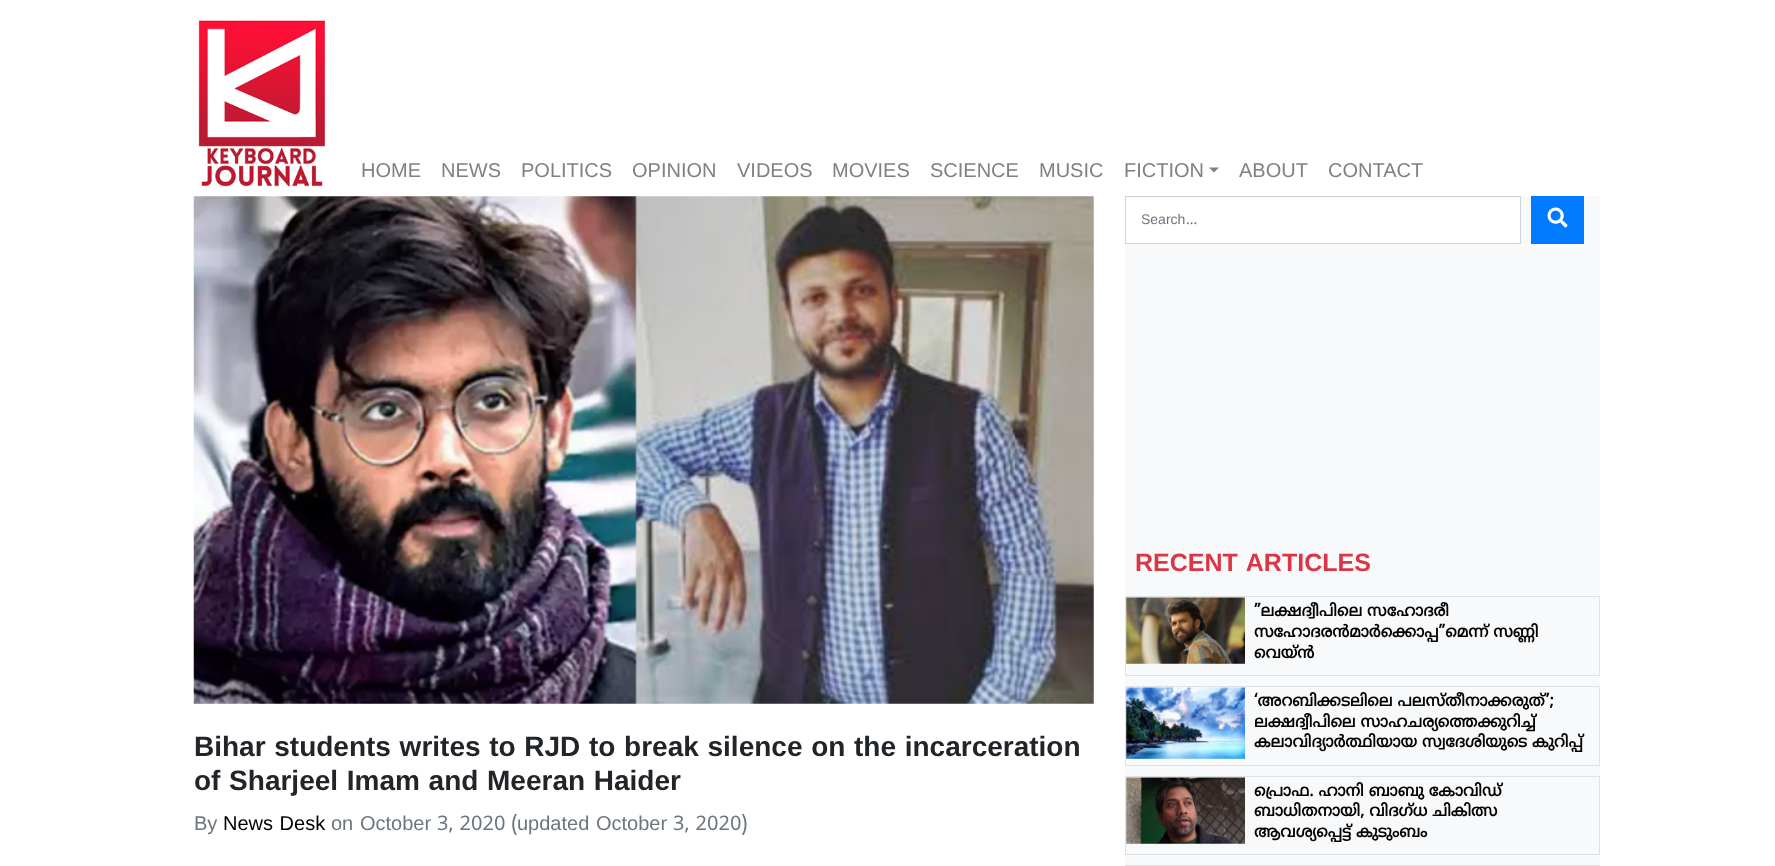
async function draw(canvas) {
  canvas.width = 1775
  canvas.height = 866
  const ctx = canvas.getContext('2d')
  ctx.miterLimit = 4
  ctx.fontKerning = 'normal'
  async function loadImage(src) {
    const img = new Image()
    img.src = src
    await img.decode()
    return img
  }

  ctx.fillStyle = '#fff'
  ctx.fillRect(0, 0, 1775, 866)
  ctx.drawImage(await loadImage('image0.png'), 198, 20, 127, 167)
  ctx.font = '20px Liberation Sans'
  ctx.fillStyle = '#808080'
  ctx.fillText('HOME', 361, 177)
  ctx.fillText('NEWS', 441, 177)
  ctx.fillText('POLITICS', 521, 177)
  ctx.fillText('OPINION', 632, 177)
  ctx.fillText('VIDEOS', 737, 177)
  ctx.fillText('MOVIES', 832, 177)
  ctx.fillText('SCIENCE', 930, 177)
  ctx.fillText('MUSIC', 1039, 177)
  ctx.fillText('FICTION', 1124, 177)
  ctx.beginPath()
  ctx.moveTo(1209, 167.5)
  ctx.lineTo(1219, 167.5)
  ctx.lineTo(1214, 172.5)
  ctx.closePath()
  ctx.fill()
  ctx.fillText('ABOUT', 1239, 177)
  ctx.fillText('CONTACT', 1328, 177)
  ctx.drawImage(await loadImage('image1.png'), 193, 196, 901, 508)
  ctx.wordSpacing = '0.9px'
  ctx.font = 'bold 28px Liberation Sans'
  ctx.fillStyle = '#212529'
  ctx.fillText('Bihar students writes to RJD to break silence on the incarceration', 194, 756)
  ctx.fillText('of Sharjeel Imam and Meeran Haider', 194, 790)
  ctx.wordSpacing = '0px'
  ctx.font = '20px Liberation Sans'
  ctx.fillStyle = '#6c757d'
  ctx.fillText('By', 194, 830)
  ctx.wordSpacing = '1px'
  ctx.fillStyle = '#000'
  ctx.fillText('News Desk', 223, 830)
  ctx.wordSpacing = '0px'
  ctx.fillStyle = '#6c757d'
  ctx.fillText('on', 331, 830)
  ctx.fillText('October', 360, 830)
  ctx.font = '20px Noto Sans Malayalam'
  ctx.fillText('3, 2020 (', 437, 830)
  ctx.font = '20px Liberation Sans'
  ctx.fillText('updated', 517, 830)
  ctx.fillText('October', 596, 830)
  ctx.font = '20px Noto Sans Malayalam'
  ctx.fillText('3, 2020)', 673, 830)
  ctx.fillStyle = '#f8f9fa'
  ctx.fillRect(1125, 196, 475, 669)
  ctx.fillStyle = '#fff'
  ctx.fillRect(1126, 198, 394, 45)
  ctx.strokeStyle = '#ced4da'
  ctx.strokeRect(1125.5, 196.5, 395, 47)
  ctx.font = '14px Liberation Sans'
  ctx.fillStyle = '#6c757d'
  ctx.fillText('Search', 1141, 224)
  ctx.font = '14px Noto Sans Malayalam'
  ctx.fillText('...', 1186, 224)
  ctx.fillStyle = '#007bff'
  ctx.fillRect(1531, 196, 53, 48)
  ctx.drawImage(await loadImage('image2.png'), 1547, 207, 21, 21)
  ctx.wordSpacing = '2px'
  ctx.font = 'bold 25px Liberation Sans'
  ctx.fillStyle = '#dc3545'
  ctx.fillText('RECENT ARTICLES', 1135, 571)
  ctx.strokeStyle = '#dee2e6'
  ctx.strokeRect(1125.5, 596.5, 474, 79)
  ctx.drawImage(await loadImage('image3.png'), 1126, 597, 119, 67)
  ctx.wordSpacing = '0px'
  ctx.font = 'bold 16px Noto Sans Malayalam'
  ctx.fillStyle = '#000'
  ctx.fillText('”ലക്ഷദ്വീപിലെ സഹോദരീ', 1254, 616)
  ctx.fillText('സഹോദരൻമാർക്കൊപ്പ”മെന്ന് സണ്ണി', 1254, 637)
  ctx.fillText('വെയ്ൻ', 1254, 658)
  ctx.strokeRect(1125.5, 686.5, 474, 79)
  ctx.drawImage(await loadImage('image4.png'), 1126, 687, 119, 72)
  ctx.fillText('‘അറബിക്കടലിലെ പലസ്തീനാക്കരുത്’;', 1254, 706)
  ctx.fillText('ലക്ഷദ്വീപിലെ സാഹചര്യത്തെക്കുറിച്ച്', 1254, 727)
  ctx.fillText('കലാവിദ്യാര്‍ത്ഥിയായ സ്വദേശിയുടെ കുറിപ്പ്', 1254, 747)
  ctx.strokeRect(1125.5, 776.5, 474, 78)
  ctx.drawImage(await loadImage('image5.png'), 1126, 777, 119, 67)
  ctx.fillText('പ്രൊഫ. ഹാനി ബാബു കോവിഡ്', 1254, 796)
  ctx.fillText('ബാധിതനായി, വിദഗ്ധ ചികിത്സ', 1254, 816)
  ctx.fillText('ആവശ്യപ്പെട്ട് കുടുംബം', 1254, 837)
  ctx.strokeRect(1125.5, 865.5, 474, 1)
}

draw(document.querySelector('canvas'))
